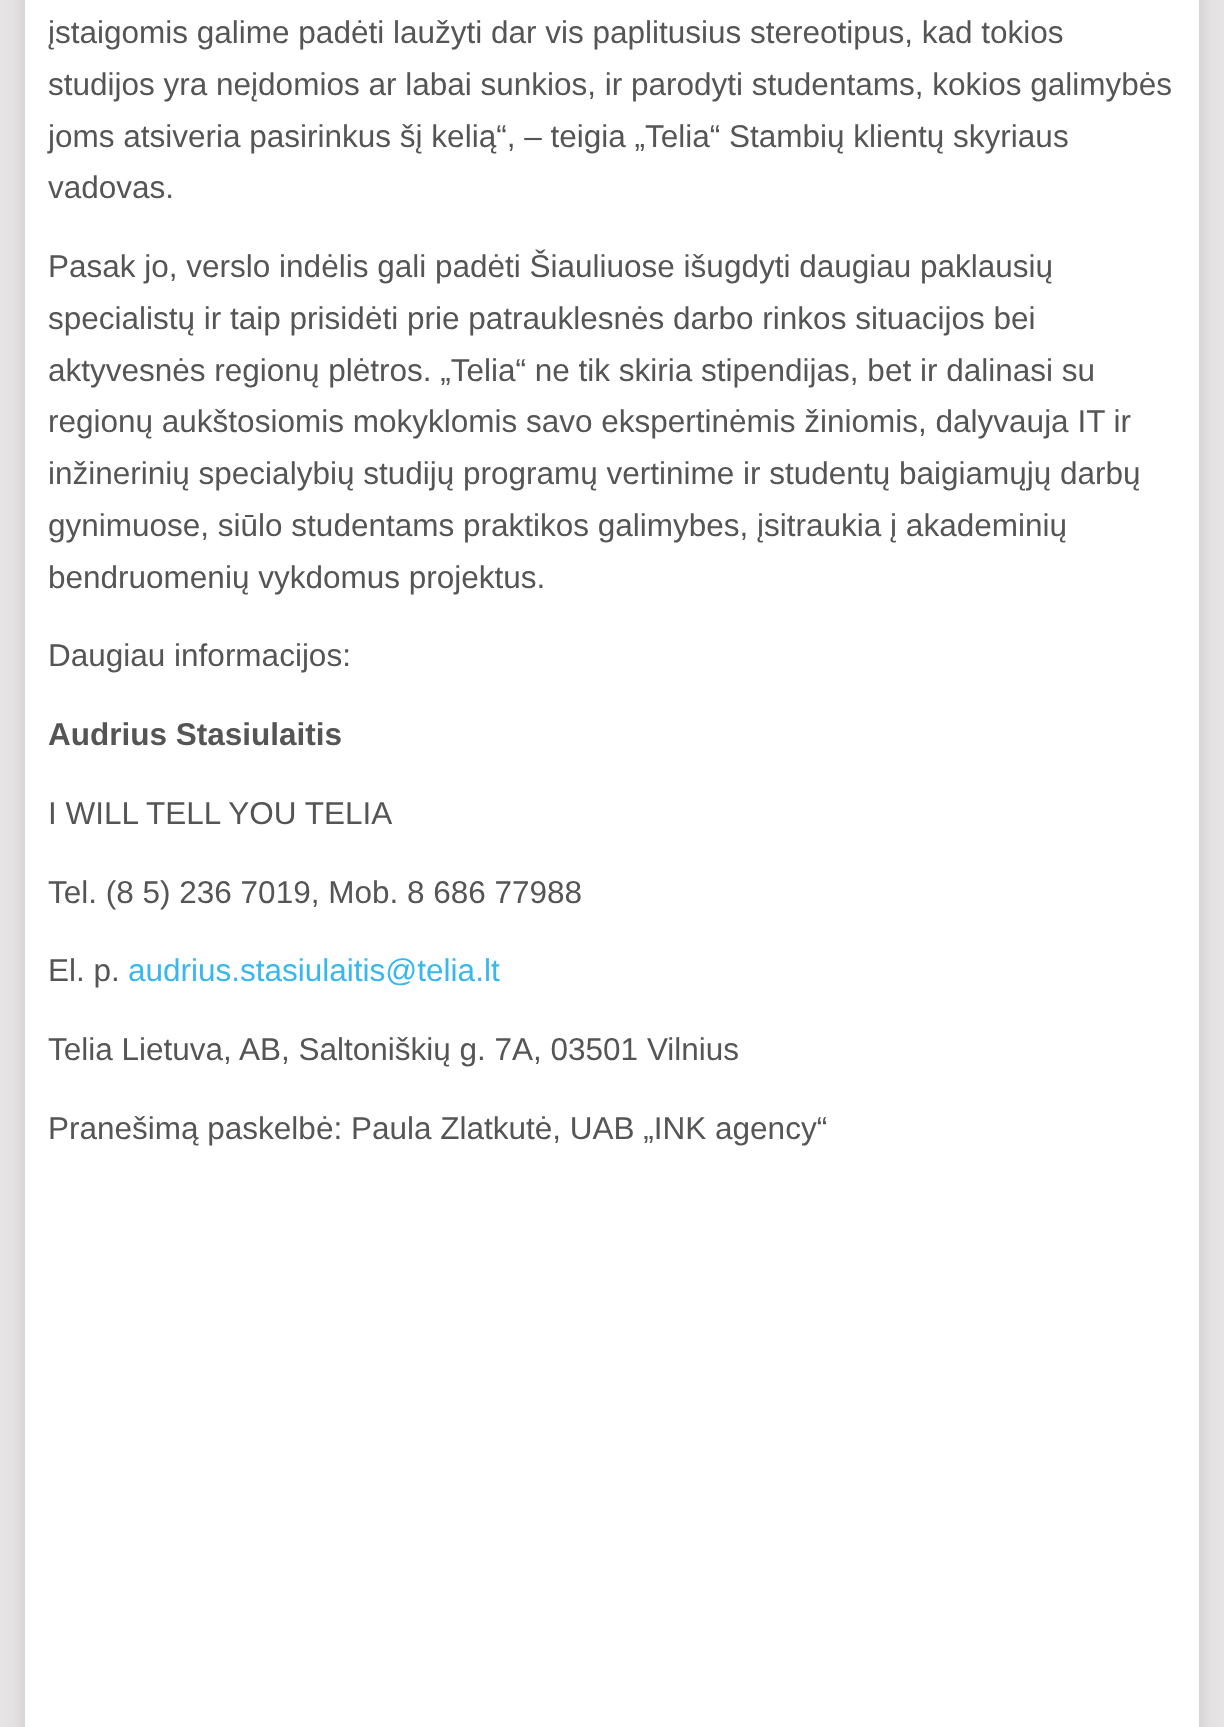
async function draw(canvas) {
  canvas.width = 1224
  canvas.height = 1727
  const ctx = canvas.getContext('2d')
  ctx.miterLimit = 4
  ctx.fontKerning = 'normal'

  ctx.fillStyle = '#e7e5e6'
  ctx.fillRect(0, 0, 1224, 1727)
  ctx.fillStyle = '#3232322b'
  ctx.filter = 'blur(11px)'
  ctx.beginPath()
  ctx.rect(25, -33, 1174, 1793)
  ctx.fill()
  ctx.filter = 'none'
  ctx.fillStyle = '#fff'
  ctx.fillRect(25, 0, 1174, 1727)
  ctx.font = '31.5px Liberation Sans'
  ctx.fillStyle = '#555'
  ctx.fillText('įstaigomis galime padėti laužyti dar vis paplitusius stereotipus, kad tokios', 48, 43)
  ctx.fillText('studijos yra neįdomios ar labai sunkios, ir parodyti studentams, kokios galimybės', 48, 95)
  ctx.fillText('joms atsiveria pasirinkus šį kelią“, – teigia „Telia“ Stambių klientų skyriaus', 48, 147)
  ctx.fillText('vadovas.', 48, 198)
  ctx.fillText('Pasak jo, verslo indėlis gali padėti Šiauliuose išugdyti daugiau paklausių', 48, 277)
  ctx.fillText('specialistų ir taip prisidėti prie patrauklesnės darbo rinkos situacijos bei', 48, 329)
  ctx.fillText('aktyvesnės regionų plėtros. „Telia“ ne tik skiria stipendijas, bet ir dalinasi su', 48, 381)
  ctx.fillText('regionų aukštosiomis mokyklomis savo ekspertinėmis žiniomis, dalyvauja IT ir', 48, 432)
  ctx.fillText('inžinerinių specialybių studijų programų vertinime ir studentų baigiamųjų darbų', 48, 484)
  ctx.fillText('gynimuose, siūlo studentams praktikos galimybes, įsitraukia į akademinių', 48, 536)
  ctx.fillText('bendruomenių vykdomus projektus.', 48, 588)
  ctx.fillText('Daugiau informacijos:', 48, 666)
  ctx.font = 'bold 31.5px Liberation Sans'
  ctx.fillText('Audrius Stasiulaitis', 48, 745)
  ctx.font = '31.5px Liberation Sans'
  ctx.fillText('I WILL TELL YOU TELIA', 48, 824)
  ctx.fillText('Tel. (8 5) 236 7019, Mob. 8 686 77988', 48, 903)
  ctx.fillText('El. p.', 48, 981)
  ctx.fillStyle = '#38b7ee'
  ctx.fillText('audrius.stasiulaitis@telia.lt', 128, 981)
  ctx.fillStyle = '#555'
  ctx.fillText('Telia Lietuva, AB, Saltoniškių g. 7A, 03501 Vilnius', 48, 1060)
  ctx.fillText('Pranešimą paskelbė: Paula Zlatkutė, UAB „INK agency“', 48, 1139)
}

draw(document.querySelector('canvas'))
